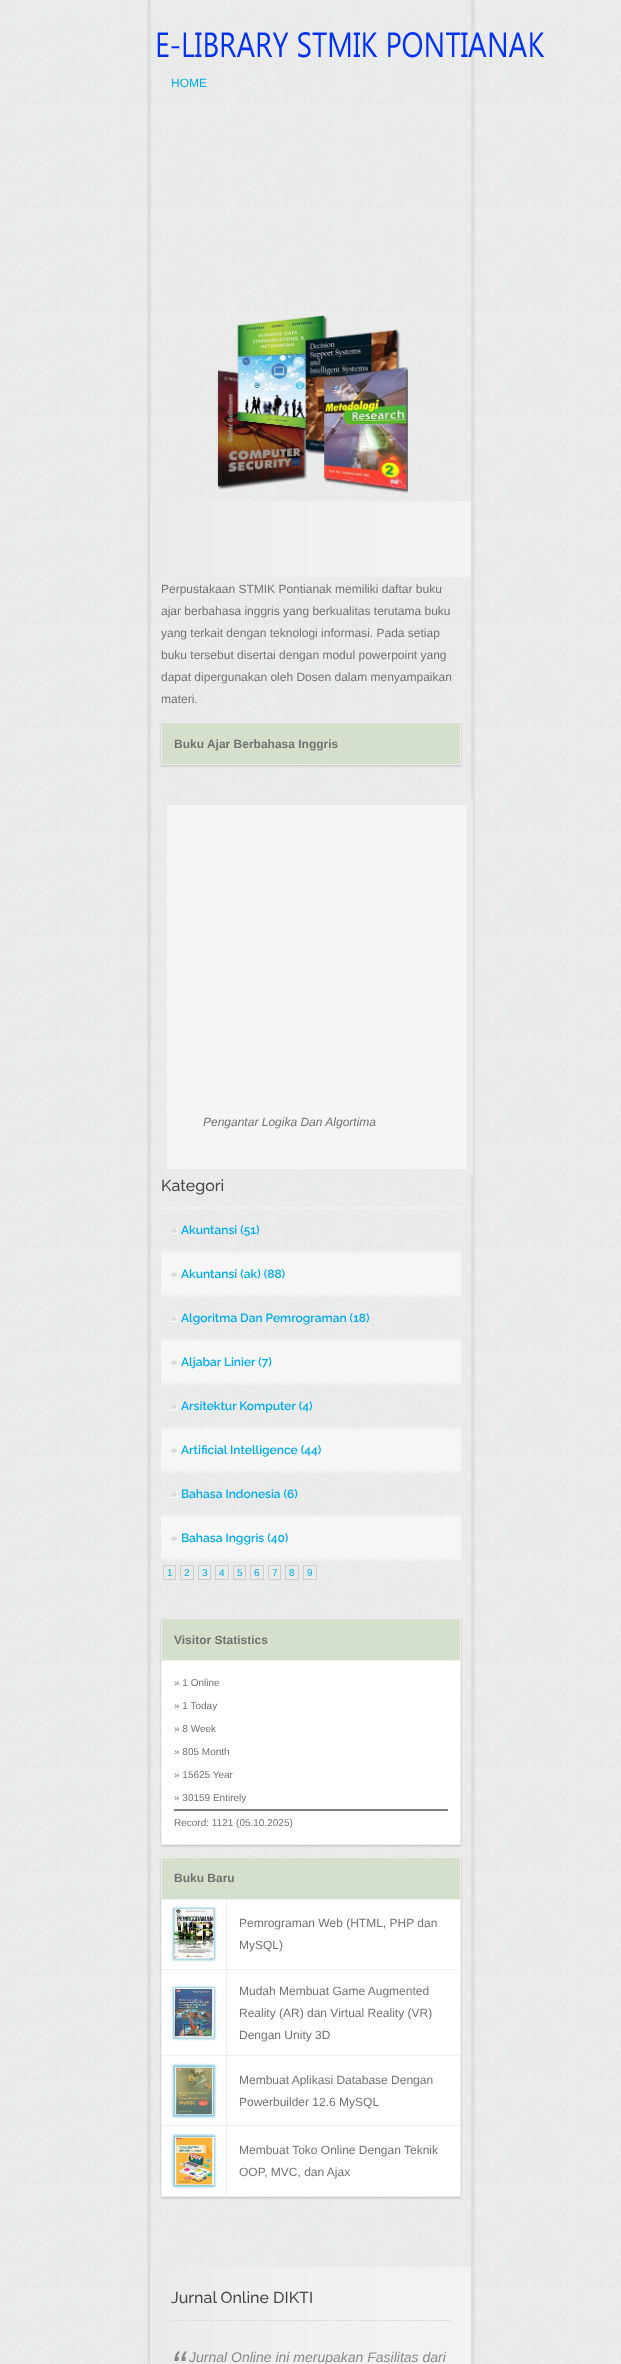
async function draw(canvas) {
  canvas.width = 621
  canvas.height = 2364
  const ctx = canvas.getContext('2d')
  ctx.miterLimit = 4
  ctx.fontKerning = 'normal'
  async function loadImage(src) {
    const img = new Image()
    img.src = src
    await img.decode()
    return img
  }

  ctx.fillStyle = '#fff'
  ctx.fillRect(0, 0, 621, 2364)
  ctx.drawImage(await loadImage('image0.png'), 0, 0, 621, 2364)
  ctx.strokeStyle = '#0000000d'
  ctx.lineWidth = 4
  ctx.strokeRect(149, -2, 324, 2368)
  ctx.drawImage(await loadImage('image1.png'), 157, 32, 388, 26)
  ctx.font = '12px Liberation Sans'
  ctx.fillStyle = '#00acef'
  ctx.fillText('HOME', 171, 87)
  ctx.drawImage(await loadImage('image2.png'), 217, 315, 191, 178)
  ctx.drawImage(await loadImage('image3.png'), 151, 501, 320, 76)
  ctx.fillStyle = '#e8e8e8'
  ctx.fillRect(151, 577, 309, 1)
  ctx.fillStyle = '#727272'
  ctx.fillText('Perpustakaan STMIK Pontianak memiliki daftar buku', 161, 593)
  ctx.fillText('ajar berbahasa inggris yang berkualitas terutama buku', 161, 615)
  ctx.fillText('yang terkait dengan teknologi informasi. Pada setiap', 161, 637)
  ctx.fillText('buku tersebut disertai dengan modul powerpoint yang', 161, 659)
  ctx.fillText('dapat dipergunakan oleh Dosen dalam menyampaikan', 161, 681)
  ctx.fillText('materi.', 161, 703)
  ctx.fillStyle = '#00000033'
  ctx.filter = 'blur(1px)'
  ctx.beginPath()
  ctx.rect(161, 723, 300, 43)
  ctx.fill()
  ctx.filter = 'none'
  ctx.fillStyle = '#d5e0cc'
  ctx.fillRect(162, 723, 298, 41)
  ctx.fillStyle = '#efefef'
  ctx.fillRect(161, 722, 300, 1)
  ctx.fillRect(460, 722, 1, 43)
  ctx.fillRect(161, 764, 300, 1)
  ctx.fillRect(161, 722, 1, 43)
  ctx.font = 'bold 12px Liberation Sans'
  ctx.fillStyle = '#727272'
  ctx.fillText('Buku Ajar Berbahasa Inggris', 174, 748)
  ctx.fillStyle = '#eaeaea'
  ctx.fillRect(161, 799, 312, 376)
  ctx.fillStyle = '#f5f5f5'
  ctx.fillRect(167, 805, 300, 364)
  ctx.font = 'italic 12px Liberation Sans'
  ctx.fillStyle = '#727272'
  ctx.fillText('Pengantar Logika Dan Algortima', 203, 1126)
  ctx.drawImage(await loadImage('image4.png'), 162, 1207, 299, 2)
  ctx.font = '500 16px Raleway'
  ctx.fillStyle = '#4a4a4a'
  ctx.fillText('Kategori', 161, 1191)
  ctx.drawImage(await loadImage('image5.png'), 163, 1251, 298, 2)
  ctx.drawImage(await loadImage('image6.png'), 171, 1228, 7, 6)
  ctx.font = '600 12px Raleway'
  ctx.fillStyle = '#00acef'
  ctx.fillText('Akuntansi (51)', 181, 1234)
  ctx.fillStyle = '#f6f6f6'
  ctx.fillRect(161, 1253, 300, 44)
  ctx.drawImage(await loadImage('image7.png'), 161, 1295, 299, 2)
  ctx.drawImage(await loadImage('image6.png'), 171, 1272, 7, 6)
  ctx.fillStyle = '#00acef'
  ctx.fillText('Akuntansi (ak) (88)', 181, 1278)
  ctx.drawImage(await loadImage('image4.png'), 162, 1339, 299, 2)
  ctx.drawImage(await loadImage('image6.png'), 171, 1316, 7, 6)
  ctx.fillText('Algoritma Dan Pemrograman (18)', 181, 1322)
  ctx.fillStyle = '#f6f6f6'
  ctx.fillRect(161, 1341, 300, 44)
  ctx.drawImage(await loadImage('image7.png'), 161, 1383, 299, 2)
  ctx.drawImage(await loadImage('image6.png'), 171, 1360, 7, 6)
  ctx.fillStyle = '#00acef'
  ctx.fillText('Aljabar Linier (7)', 181, 1366)
  ctx.drawImage(await loadImage('image4.png'), 162, 1427, 299, 2)
  ctx.drawImage(await loadImage('image6.png'), 171, 1404, 7, 6)
  ctx.fillText('Arsitektur Komputer (4)', 181, 1410)
  ctx.fillStyle = '#f6f6f6'
  ctx.fillRect(161, 1429, 300, 44)
  ctx.drawImage(await loadImage('image7.png'), 161, 1471, 299, 2)
  ctx.drawImage(await loadImage('image6.png'), 171, 1448, 7, 6)
  ctx.fillStyle = '#00acef'
  ctx.fillText('Artificial Intelligence (44)', 181, 1454)
  ctx.drawImage(await loadImage('image4.png'), 162, 1515, 299, 2)
  ctx.drawImage(await loadImage('image6.png'), 171, 1492, 7, 6)
  ctx.fillText('Bahasa Indonesia (6)', 181, 1498)
  ctx.fillStyle = '#f6f6f6'
  ctx.fillRect(161, 1517, 300, 44)
  ctx.drawImage(await loadImage('image7.png'), 161, 1559, 299, 2)
  ctx.drawImage(await loadImage('image6.png'), 171, 1536, 7, 6)
  ctx.fillStyle = '#00acef'
  ctx.fillText('Bahasa Inggris (40)', 181, 1542)
  ctx.strokeStyle = '#ccc'
  ctx.lineWidth = 1
  ctx.strokeRect(163.5, 1565.5, 12, 14)
  ctx.font = '10px Liberation Sans'
  ctx.fillText('1', 167, 1576)
  ctx.strokeRect(180.5, 1565.5, 13, 14)
  ctx.fillText('2', 184, 1576)
  ctx.strokeRect(198.5, 1565.5, 12, 14)
  ctx.fillText('3', 202, 1576)
  ctx.strokeRect(215.5, 1565.5, 13, 14)
  ctx.fillText('4', 219, 1576)
  ctx.strokeRect(233.5, 1565.5, 12, 14)
  ctx.fillText('5', 237, 1576)
  ctx.strokeRect(250.5, 1565.5, 13, 14)
  ctx.fillText('6', 254, 1576)
  ctx.strokeRect(268.5, 1565.5, 12, 14)
  ctx.fillText('7', 272, 1576)
  ctx.strokeRect(285.5, 1565.5, 13, 14)
  ctx.fillText('8', 289, 1576)
  ctx.strokeRect(303.5, 1565.5, 13, 14)
  ctx.fillText('9', 307, 1576)
  ctx.fillStyle = '#00000033'
  ctx.filter = 'blur(1px)'
  ctx.beginPath()
  ctx.rect(161, 1619, 300, 227)
  ctx.fill()
  ctx.filter = 'none'
  ctx.fillStyle = '#d5e0cc'
  ctx.fillRect(162, 1619, 298, 41)
  ctx.fillStyle = '#efefef'
  ctx.fillRect(161, 1618, 300, 1)
  ctx.fillRect(460, 1660, 1, 185)
  ctx.fillRect(460, 1618, 1, 43)
  ctx.fillRect(161, 1844, 300, 1)
  ctx.fillRect(161, 1660, 1, 185)
  ctx.fillRect(161, 1660, 300, 1)
  ctx.fillRect(161, 1618, 1, 43)
  ctx.font = 'bold 12px Liberation Sans'
  ctx.fillStyle = '#727272'
  ctx.fillText('Visitor Statistics', 174, 1644)
  ctx.fillStyle = '#fff'
  ctx.fillRect(162, 1661, 298, 183)
  ctx.font = '10px Liberation Sans'
  ctx.fillStyle = '#727272'
  ctx.fillText('» 1 Online', 174, 1686)
  ctx.fillText('» 1 Today', 174, 1709)
  ctx.fillText('» 8 Week', 174, 1732)
  ctx.fillText('» 805 Month', 174, 1755)
  ctx.fillText('» 15625 Year', 174, 1778)
  ctx.fillText('» 30159 Entirely', 174, 1801)
  ctx.fillStyle = '#808080'
  ctx.fillRect(174, 1809, 274, 2)
  ctx.fillStyle = '#727272'
  ctx.fillText('Record: 1121 (05.10.2025)', 174, 1826)
  ctx.fillStyle = '#00000033'
  ctx.filter = 'blur(1px)'
  ctx.beginPath()
  ctx.rect(161, 1858, 300, 340)
  ctx.fill()
  ctx.filter = 'none'
  ctx.fillStyle = '#d5e0cc'
  ctx.fillRect(162, 1858, 298, 41)
  ctx.fillStyle = '#efefef'
  ctx.fillRect(161, 1857, 300, 1)
  ctx.fillRect(226, 1899, 235, 1)
  ctx.fillRect(226, 1969, 235, 1)
  ctx.fillRect(226, 2055, 235, 1)
  ctx.fillRect(226, 2125, 235, 1)
  ctx.fillRect(460, 2125, 1, 72)
  ctx.fillRect(460, 2055, 1, 71)
  ctx.fillRect(460, 1969, 1, 87)
  ctx.fillRect(460, 1899, 1, 71)
  ctx.fillRect(460, 1857, 1, 43)
  ctx.fillRect(226, 2196, 235, 1)
  ctx.fillRect(226, 2125, 1, 72)
  ctx.fillRect(161, 2125, 66, 1)
  ctx.fillRect(226, 2055, 1, 71)
  ctx.fillRect(161, 2055, 66, 1)
  ctx.fillRect(226, 1969, 1, 87)
  ctx.fillRect(161, 1969, 66, 1)
  ctx.fillRect(226, 1899, 1, 71)
  ctx.fillRect(161, 1899, 66, 1)
  ctx.fillRect(161, 2196, 66, 1)
  ctx.fillRect(161, 2125, 1, 72)
  ctx.fillRect(161, 2055, 1, 71)
  ctx.fillRect(161, 1969, 1, 87)
  ctx.fillRect(161, 1899, 1, 71)
  ctx.fillRect(161, 1857, 1, 43)
  ctx.font = 'bold 12px Liberation Sans'
  ctx.fillStyle = '#727272'
  ctx.fillText('Buku Baru', 174, 1882)
  ctx.fillStyle = '#fff'
  ctx.fillRect(162, 1900, 64, 69)
  ctx.fillStyle = '#008cba80'
  ctx.filter = 'blur(1px)'
  ctx.beginPath()
  ctx.rect(173, 1908, 42, 52)
  ctx.fill()
  ctx.filter = 'none'
  ctx.drawImage(await loadImage('image8.png'), 174, 1909, 40, 50)
  ctx.fillStyle = '#fff'
  ctx.fillRect(227, 1900, 233, 69)
  ctx.font = '12px Liberation Sans'
  ctx.fillStyle = '#727272'
  ctx.fillText('Pemrograman Web (HTML, PHP dan', 239, 1927)
  ctx.fillText('MySQL)', 239, 1949)
  ctx.fillStyle = '#fff'
  ctx.fillRect(162, 1970, 64, 85)
  ctx.fillStyle = '#008cba80'
  ctx.filter = 'blur(1px)'
  ctx.beginPath()
  ctx.rect(173, 1987, 42, 52)
  ctx.fill()
  ctx.filter = 'none'
  ctx.drawImage(await loadImage('image9.png'), 174, 1988, 40, 50)
  ctx.fillStyle = '#fff'
  ctx.fillRect(227, 1970, 233, 85)
  ctx.fillStyle = '#727272'
  ctx.fillText('Mudah Membuat Game Augmented', 239, 1995)
  ctx.fillText('Reality (AR) dan Virtual Reality (VR)', 239, 2017)
  ctx.fillText('Dengan Unity 3D', 239, 2039)
  ctx.fillStyle = '#fff'
  ctx.fillRect(162, 2056, 64, 69)
  ctx.fillStyle = '#008cba80'
  ctx.filter = 'blur(1px)'
  ctx.beginPath()
  ctx.rect(173, 2065, 42, 52)
  ctx.fill()
  ctx.filter = 'none'
  ctx.drawImage(await loadImage('image10.png'), 175, 2067, 38, 48)
  ctx.fillStyle = '#fff'
  ctx.fillRect(227, 2056, 233, 69)
  ctx.fillStyle = '#727272'
  ctx.fillText('Membuat Aplikasi Database Dengan', 239, 2084)
  ctx.fillText('Powerbuilder 12.6 MySQL', 239, 2106)
  ctx.fillStyle = '#fff'
  ctx.fillRect(162, 2126, 64, 70)
  ctx.fillStyle = '#008cba80'
  ctx.filter = 'blur(1px)'
  ctx.beginPath()
  ctx.rect(173, 2135, 42, 52)
  ctx.fill()
  ctx.filter = 'none'
  ctx.drawImage(await loadImage('image11.png'), 175, 2137, 39, 48)
  ctx.fillStyle = '#fff'
  ctx.fillRect(227, 2126, 233, 70)
  ctx.fillStyle = '#727272'
  ctx.fillText('Membuat Toko Online Dengan Teknik', 239, 2154)
  ctx.fillText('OOP, MVC, dan Ajax', 239, 2176)
  ctx.drawImage(await loadImage('image12.png'), 151, 2267, 320, 97)
  ctx.drawImage(await loadImage('image13.png'), 171, 2320, 280, 1)
  ctx.font = '500 16px Raleway'
  ctx.fillStyle = '#4a4a4a'
  ctx.fillText('Jurnal Online DIKTI', 171, 2303)
  ctx.font = 'italic 43px Liberation Sans'
  ctx.fillStyle = '#898989'
  ctx.fillText('“', 171, 2381)
  ctx.font = 'italic 14px Liberation Sans'
  ctx.fillText('Jurnal Online ini merupakan Fasilitas dari', 189, 2362)
}

draw(document.querySelector('canvas'))
